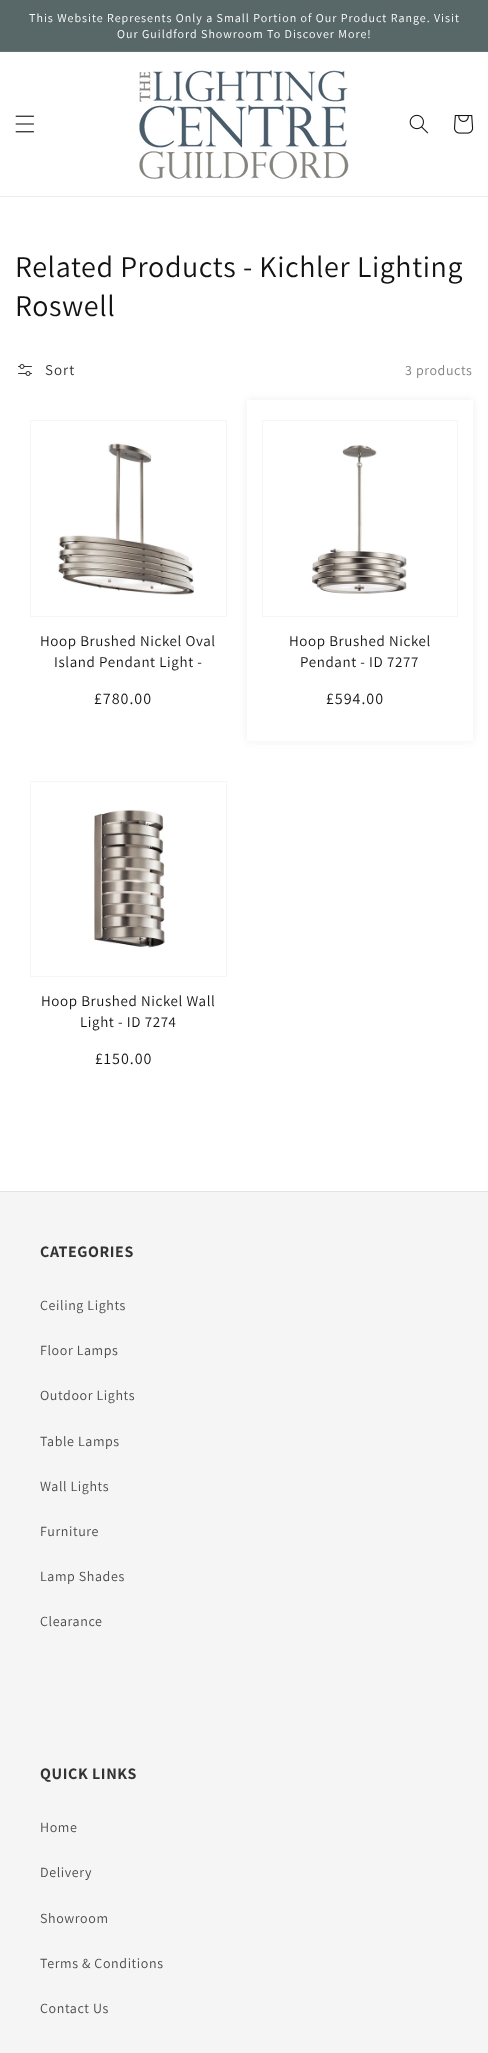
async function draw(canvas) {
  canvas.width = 488
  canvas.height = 2053
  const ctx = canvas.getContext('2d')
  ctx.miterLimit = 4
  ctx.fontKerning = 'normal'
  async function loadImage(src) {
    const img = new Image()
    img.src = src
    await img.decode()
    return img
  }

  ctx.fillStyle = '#fff'
  ctx.fillRect(0, 0, 488, 2053)
  ctx.fillStyle = '#586768'
  ctx.fillRect(0, 0, 488, 51)
  ctx.fillStyle = '#657374'
  ctx.fillRect(0, 51, 488, 1)
  ctx.letterSpacing = '1px'
  ctx.font = '12px Assistant'
  ctx.fillStyle = '#fff'
  ctx.fillText('This Website Represents Only a Small Portion of Our Product Range. Visit', 29, 22)
  ctx.fillText('Our Guildford Showroom To Discover More!', 117, 38)
  ctx.fillStyle = '#ececec'
  ctx.fillRect(0, 196, 488, 1)
  ctx.drawImage(await loadImage('image0.png'), 15, 115, 20, 18)
  ctx.drawImage(await loadImage('image1.png'), 139, 70, 210, 109)
  ctx.drawImage(await loadImage('image2.png'), 409, 114, 19, 20)
  ctx.drawImage(await loadImage('image3.png'), 454, 115, 20, 19)
  ctx.letterSpacing = '0.6px'
  ctx.font = '30px Assistant'
  ctx.fillStyle = '#121212'
  ctx.fillText('Related Products - Kichler Lighting', 15, 277)
  ctx.fillText('Roswell', 15, 316)
  ctx.drawImage(await loadImage('image4.png'), 18, 364, 14, 12)
  ctx.letterSpacing = '1px'
  ctx.font = '15px Assistant'
  ctx.fillStyle = '#333'
  ctx.fillText('Sort', 45, 375)
  ctx.letterSpacing = '0.6px'
  ctx.font = '14px Assistant'
  ctx.fillStyle = '#838383'
  ctx.fillText('3 products', 405, 375)
  ctx.strokeStyle = '#f6f6f6'
  ctx.strokeRect(30.5, 420.5, 196, 196)
  ctx.drawImage(await loadImage('image5.png'), 58, 443, 136, 152)
  ctx.font = '15px Assistant'
  ctx.fillStyle = '#121212'
  ctx.fillText('Hoop Brushed Nickel Oval', 40, 646)
  ctx.fillText('Island Pendant Light -', 54, 667)
  ctx.letterSpacing = '1px'
  ctx.font = '16px Assistant'
  ctx.fillText('£780.00', 94, 704)
  ctx.fillStyle = '#3e3e3e17'
  ctx.filter = 'blur(4.5px)'
  ctx.beginPath()
  ctx.rect(247, 400, 226, 341)
  ctx.fill()
  ctx.filter = 'none'
  ctx.fillStyle = '#fff'
  ctx.fillRect(247, 400, 226, 341)
  ctx.strokeRect(262.5, 420.5, 195, 196)
  ctx.drawImage(await loadImage('image6.png'), 312, 445, 95, 149)
  ctx.letterSpacing = '0.6px'
  ctx.font = '15px Assistant'
  ctx.fillStyle = '#121212'
  ctx.fillText('Hoop Brushed Nickel', 289, 646)
  ctx.fillText('Pendant - ID 7277', 300, 667)
  ctx.letterSpacing = '1px'
  ctx.font = '16px Assistant'
  ctx.fillText('£594.00', 326, 704)
  ctx.strokeRect(30.5, 781.5, 196, 195)
  ctx.drawImage(await loadImage('image7.png'), 94, 809, 71, 139)
  ctx.letterSpacing = '0.6px'
  ctx.font = '15px Assistant'
  ctx.fillText('Hoop Brushed Nickel Wall', 41, 1006)
  ctx.fillText('Light - ID 7274', 80, 1027)
  ctx.letterSpacing = '1px'
  ctx.font = '16px Assistant'
  ctx.fillText('£150.00', 95, 1064)
  ctx.fillStyle = '#f5f5f5'
  ctx.fillRect(0, 1192, 488, 861)
  ctx.fillStyle = '#e3e3e3'
  ctx.fillRect(0, 1191, 488, 1)
  ctx.letterSpacing = '0.6px'
  ctx.font = 'bold 16px Assistant'
  ctx.fillStyle = '#333'
  ctx.fillText('CATEGORIES', 40, 1257)
  ctx.font = '14px Assistant'
  ctx.fillStyle = '#4b4b4b'
  ctx.fillText('Ceiling Lights', 40, 1310)
  ctx.fillText('Floor Lamps', 40, 1355)
  ctx.fillText('Outdoor Lights', 40, 1400)
  ctx.fillText('Table Lamps', 40, 1446)
  ctx.fillText('Wall Lights', 40, 1491)
  ctx.fillText('Furniture', 40, 1536)
  ctx.fillText('Lamp Shades', 40, 1581)
  ctx.fillText('Clearance', 40, 1626)
  ctx.font = 'bold 16px Assistant'
  ctx.fillStyle = '#333'
  ctx.fillText('QUICK LINKS', 40, 1779)
  ctx.font = '14px Assistant'
  ctx.fillStyle = '#4b4b4b'
  ctx.fillText('Home', 40, 1832)
  ctx.fillText('Delivery', 40, 1877)
  ctx.fillText('Showroom', 40, 1923)
  ctx.fillText('Terms & Conditions', 40, 1968)
  ctx.fillText('Contact Us', 40, 2013)
}

draw(document.querySelector('canvas'))
